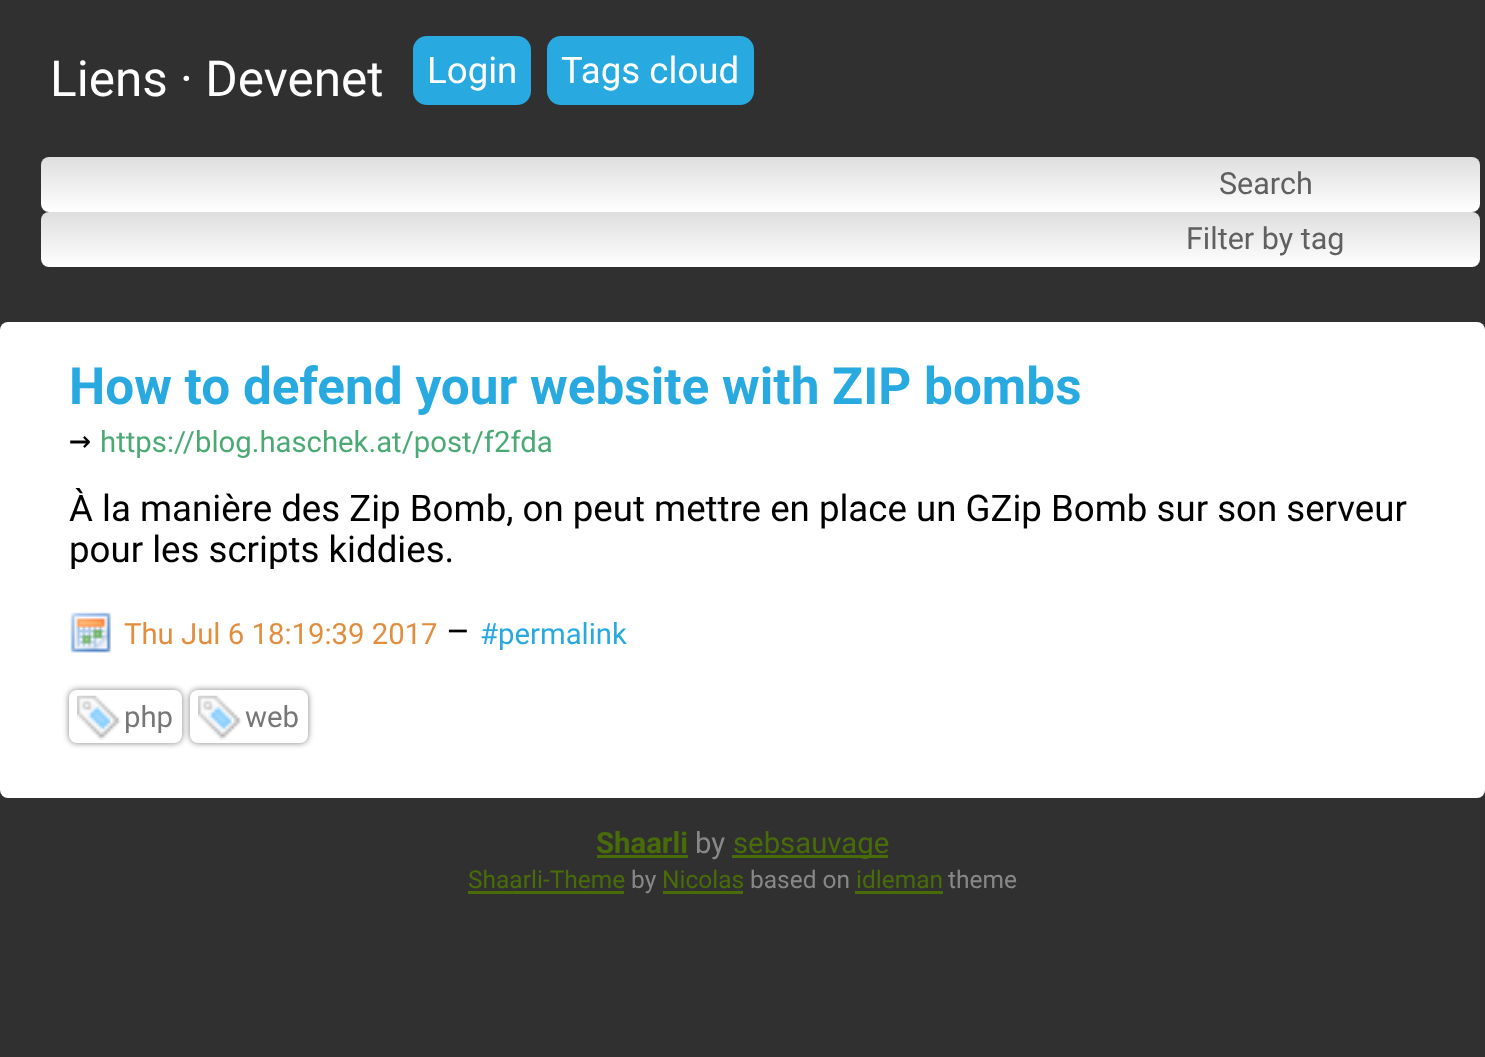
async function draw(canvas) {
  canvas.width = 1485
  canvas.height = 1057
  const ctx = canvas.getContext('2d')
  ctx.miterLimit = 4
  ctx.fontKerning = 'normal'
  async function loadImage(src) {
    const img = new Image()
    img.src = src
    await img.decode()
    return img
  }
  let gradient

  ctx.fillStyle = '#303030'
  ctx.fillRect(0, 0, 1485, 1057)
  ctx.font = '49.5px Roboto'
  ctx.fillStyle = '#fff'
  ctx.fillText('Liens · Devenet', 50, 96)
  ctx.fillStyle = '#28aae1'
  ctx.beginPath()
  ctx.roundRect(413, 36, 118, 69, 14)
  ctx.fill()
  ctx.font = '36.65px Roboto'
  ctx.fillStyle = '#fff'
  ctx.fillText('Login', 427, 83)
  ctx.fillStyle = '#28aae1'
  ctx.beginPath()
  ctx.roundRect(547, 36, 207, 69, 14)
  ctx.fill()
  ctx.fillStyle = '#fff'
  ctx.fillText('Tags cloud', 561, 83)
  gradient = ctx.createLinearGradient(756, 157, 756, 212)
  gradient.addColorStop(0, '#dedede')
  gradient.addColorStop(1, '#fff')
  ctx.fillStyle = gradient
  ctx.beginPath()
  ctx.roundRect(41, 157, 1430, 55, 8)
  ctx.fill()
  gradient = ctx.createLinearGradient(1265, 157, 1265, 212)
  gradient.addColorStop(0, '#dedede')
  gradient.addColorStop(1, '#fff')
  ctx.fillStyle = gradient
  ctx.beginPath()
  ctx.roundRect(1051, 157, 429, 55, 8)
  ctx.fill()
  ctx.font = '30.5px Roboto'
  ctx.fillStyle = '#606060'
  ctx.fillText('Search', 1219, 194)
  gradient = ctx.createLinearGradient(756, 212, 756, 267)
  gradient.addColorStop(0, '#dedede')
  gradient.addColorStop(1, '#fff')
  ctx.fillStyle = gradient
  ctx.beginPath()
  ctx.roundRect(41, 212, 1430, 55, 8)
  ctx.fill()
  gradient = ctx.createLinearGradient(1265, 212, 1265, 267)
  gradient.addColorStop(0, '#dedede')
  gradient.addColorStop(1, '#fff')
  ctx.fillStyle = gradient
  ctx.beginPath()
  ctx.roundRect(1051, 212, 429, 55, 8)
  ctx.fill()
  ctx.fillStyle = '#606060'
  ctx.fillText('Filter by tag', 1186, 249)
  ctx.fillStyle = '#fff'
  ctx.beginPath()
  ctx.roundRect(0, 322, 1485, 476, 8)
  ctx.fill()
  ctx.font = 'bold 51.3px Roboto'
  ctx.fillStyle = '#28aae1'
  ctx.fillText('How to defend your website with ZIP bombs', 69, 404)
  ctx.font = '36.65px DejaVu Sans Mono'
  ctx.fillStyle = '#000'
  ctx.fillText('→', 69, 452)
  ctx.font = '29.3px Roboto'
  ctx.fillStyle = '#4baa74'
  ctx.fillText('https://blog.haschek.at/post/f2fda', 100, 452)
  ctx.font = '36.65px Roboto'
  ctx.fillStyle = '#000'
  ctx.fillText('À la manière des Zip Bomb, on peut mettre en place un GZip Bomb sur son serveur', 69, 521)
  ctx.save()
  ctx.beginPath()
  ctx.rect(69, 487, 1350, 82)
  ctx.clip()
  ctx.fillText('pour les scripts kiddies.', 69, 562)
  ctx.restore()
  ctx.drawImage(await loadImage('image0.png'), 70, 612, 41, 41)
  ctx.font = '29.3px Roboto'
  ctx.fillStyle = '#e28e3f'
  ctx.fillText('Thu Jul 6 18:19:39 2017', 124, 644)
  ctx.font = '36.65px Roboto'
  ctx.fillStyle = '#000'
  ctx.fillText('–', 446, 644)
  ctx.font = '29.3px Roboto'
  ctx.fillStyle = '#28aae1'
  ctx.fillText('#permalink', 480, 644)
  ctx.fillStyle = '#00000080'
  ctx.filter = 'blur(3px)'
  ctx.beginPath()
  ctx.roundRect(69, 690, 113, 53, 8)
  ctx.fill()
  ctx.filter = 'none'
  ctx.fillStyle = '#fff'
  ctx.beginPath()
  ctx.roundRect(69, 690, 113, 53, 8)
  ctx.fill()
  ctx.drawImage(await loadImage('image1.png'), 77, 695, 44, 45)
  ctx.fillStyle = '#777'
  ctx.fillText('php', 124, 727)
  ctx.fillStyle = '#00000080'
  ctx.filter = 'blur(3px)'
  ctx.beginPath()
  ctx.roundRect(190, 690, 118, 53, 8)
  ctx.fill()
  ctx.filter = 'none'
  ctx.fillStyle = '#fff'
  ctx.beginPath()
  ctx.roundRect(190, 690, 118, 53, 8)
  ctx.fill()
  ctx.drawImage(await loadImage('image1.png'), 198, 695, 44, 45)
  ctx.fillStyle = '#777'
  ctx.fillText('web', 245, 727)
  ctx.font = 'bold 29.3px Roboto'
  ctx.fillStyle = '#486d08'
  ctx.fillText('Shaarli', 596, 853)
  ctx.fillRect(597, 855, 91, 3)
  ctx.font = '29.3px Roboto'
  ctx.fillStyle = '#888'
  ctx.fillText('by', 695, 853)
  ctx.fillStyle = '#486d08'
  ctx.fillRect(732, 855, 156, 3)
  ctx.fillText('sebsauvage', 733, 853)
  ctx.font = '24.5px Roboto'
  ctx.fillText('Shaarli-Theme', 468, 888)
  ctx.fillRect(468, 891, 156, 3)
  ctx.fillStyle = '#888'
  ctx.fillText('by', 631, 888)
  ctx.fillStyle = '#486d08'
  ctx.fillText('Nicolas', 662, 888)
  ctx.fillRect(663, 891, 80, 3)
  ctx.fillStyle = '#888'
  ctx.fillText('based on', 750, 888)
  ctx.fillStyle = '#486d08'
  ctx.fillText('idleman', 856, 888)
  ctx.fillRect(855, 891, 88, 3)
  ctx.fillStyle = '#888'
  ctx.fillText('theme', 948, 888)
}

draw(document.querySelector('canvas'))
